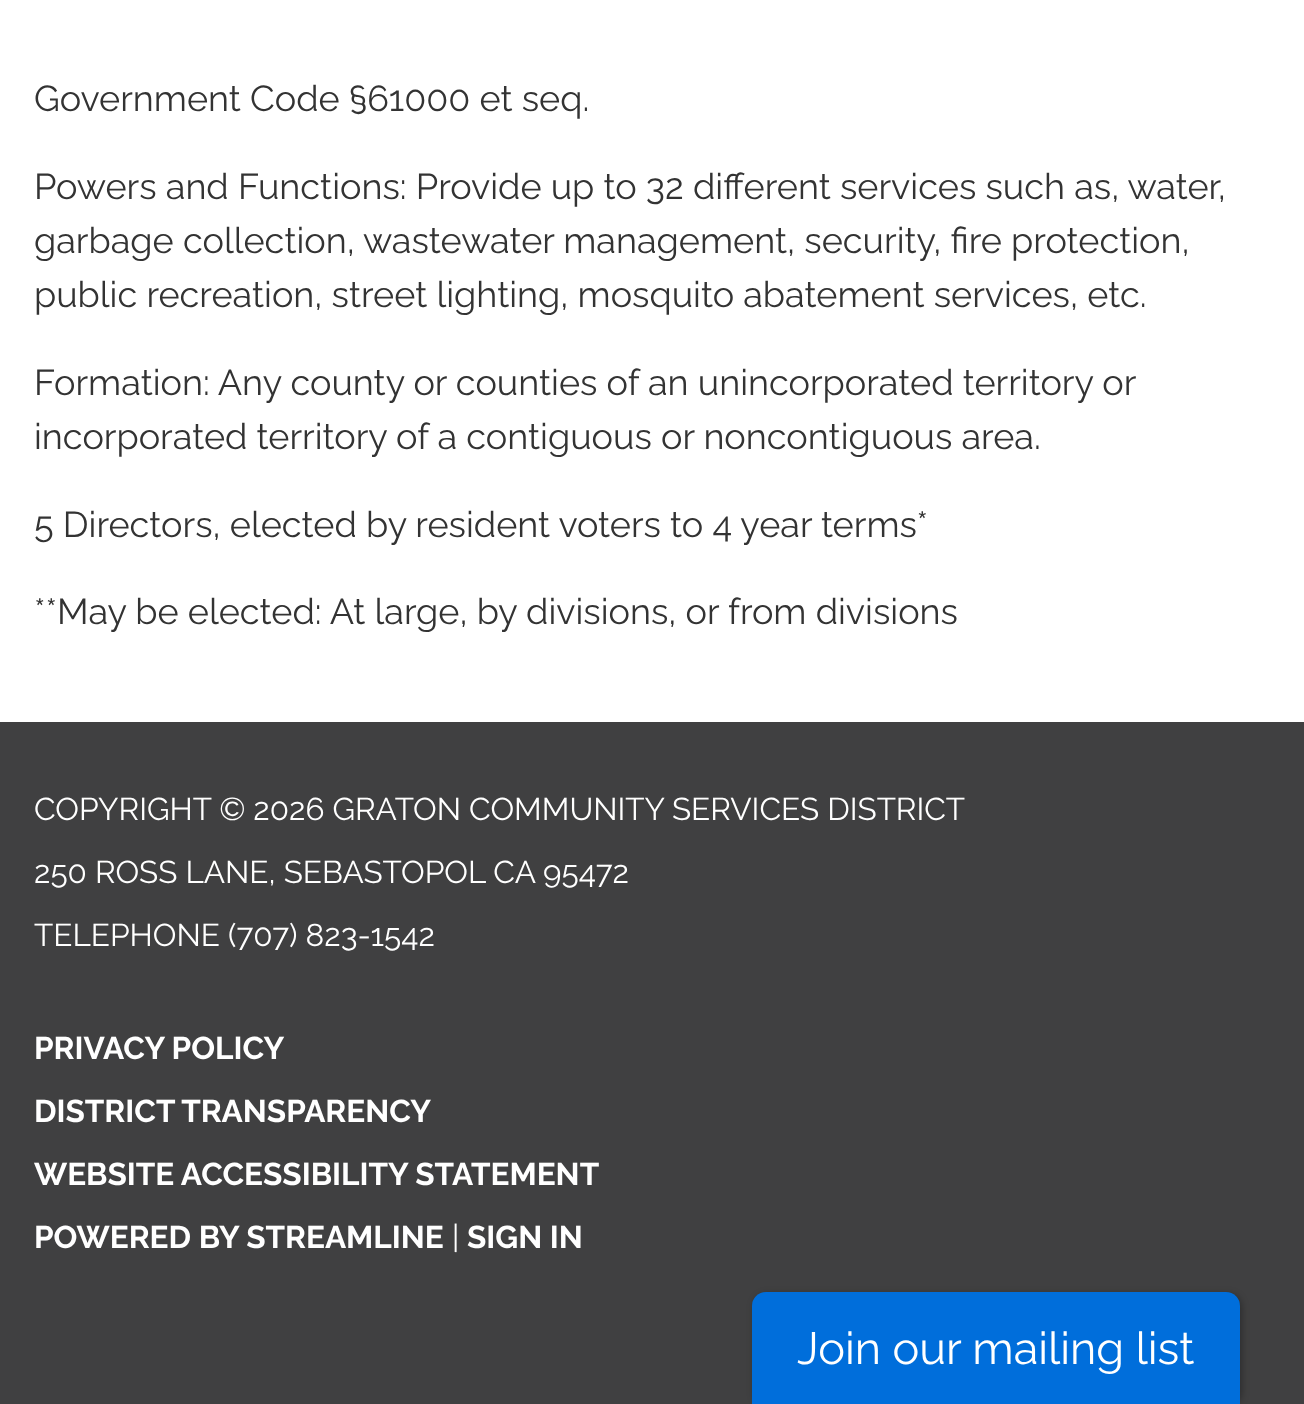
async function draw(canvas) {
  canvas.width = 1304
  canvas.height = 1404
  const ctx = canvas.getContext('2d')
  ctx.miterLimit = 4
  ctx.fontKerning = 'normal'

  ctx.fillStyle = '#404041'
  ctx.fillRect(0, 0, 1304, 1404)
  ctx.fillStyle = '#fff'
  ctx.fillRect(0, 0, 1304, 722)
  ctx.font = '36px Raleway'
  ctx.fillStyle = '#333'
  ctx.fillText('Government Code §61000 et seq.', 34, 111)
  ctx.fillText('Powers and Functions: Provide up to 32 different services such as, water,', 34, 199)
  ctx.fillText('garbage collection, wastewater management, security, fire protection,', 34, 253)
  ctx.fillText('public recreation, street lighting, mosquito abatement services, etc.', 34, 307)
  ctx.fillText('Formation: Any county or counties of an unincorporated territory or', 34, 395)
  ctx.fillText('incorporated territory of a contiguous or noncontiguous area.', 34, 449)
  ctx.fillText('5 Directors, elected by resident voters to 4 year terms*', 34, 537)
  ctx.fillText('**May be elected: At large, by divisions, or from divisions', 34, 624)
  ctx.font = '31.5px Raleway'
  ctx.fillStyle = '#fff'
  ctx.fillText('COPYRIGHT © 2026 GRATON COMMUNITY SERVICES DISTRICT', 34, 820)
  ctx.fillText('250 ROSS LANE, SEBASTOPOL CA 95472', 34, 883)
  ctx.fillText('TELEPHONE (707) 823-1542', 34, 946)
  ctx.font = 'bold 31.5px Raleway'
  ctx.fillText('PRIVACY POLICY', 34, 1059)
  ctx.fillText('DISTRICT TRANSPARENCY', 34, 1122)
  ctx.fillText('WEBSITE ACCESSIBILITY STATEMENT', 34, 1185)
  ctx.fillText('POWERED BY STREAMLINE', 34, 1248)
  ctx.font = '31.5px Raleway'
  ctx.fillText('|', 452, 1248)
  ctx.font = 'bold 31.5px Raleway'
  ctx.fillText('SIGN IN', 467, 1248)
  ctx.fillStyle = '#0000004d'
  ctx.filter = 'blur(3.5px)'
  ctx.beginPath()
  ctx.roundRect(754, 1294, 488, 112, 14)
  ctx.fill()
  ctx.filter = 'none'
  ctx.fillStyle = '#006edb'
  ctx.beginPath()
  ctx.roundRect(752, 1292, 488, 112, [14, 14, 0, 0])
  ctx.fill()
  ctx.font = '45px Raleway'
  ctx.fillStyle = '#fff'
  ctx.fillText('Join our mailing list', 797, 1364)
}

draw(document.querySelector('canvas'))
